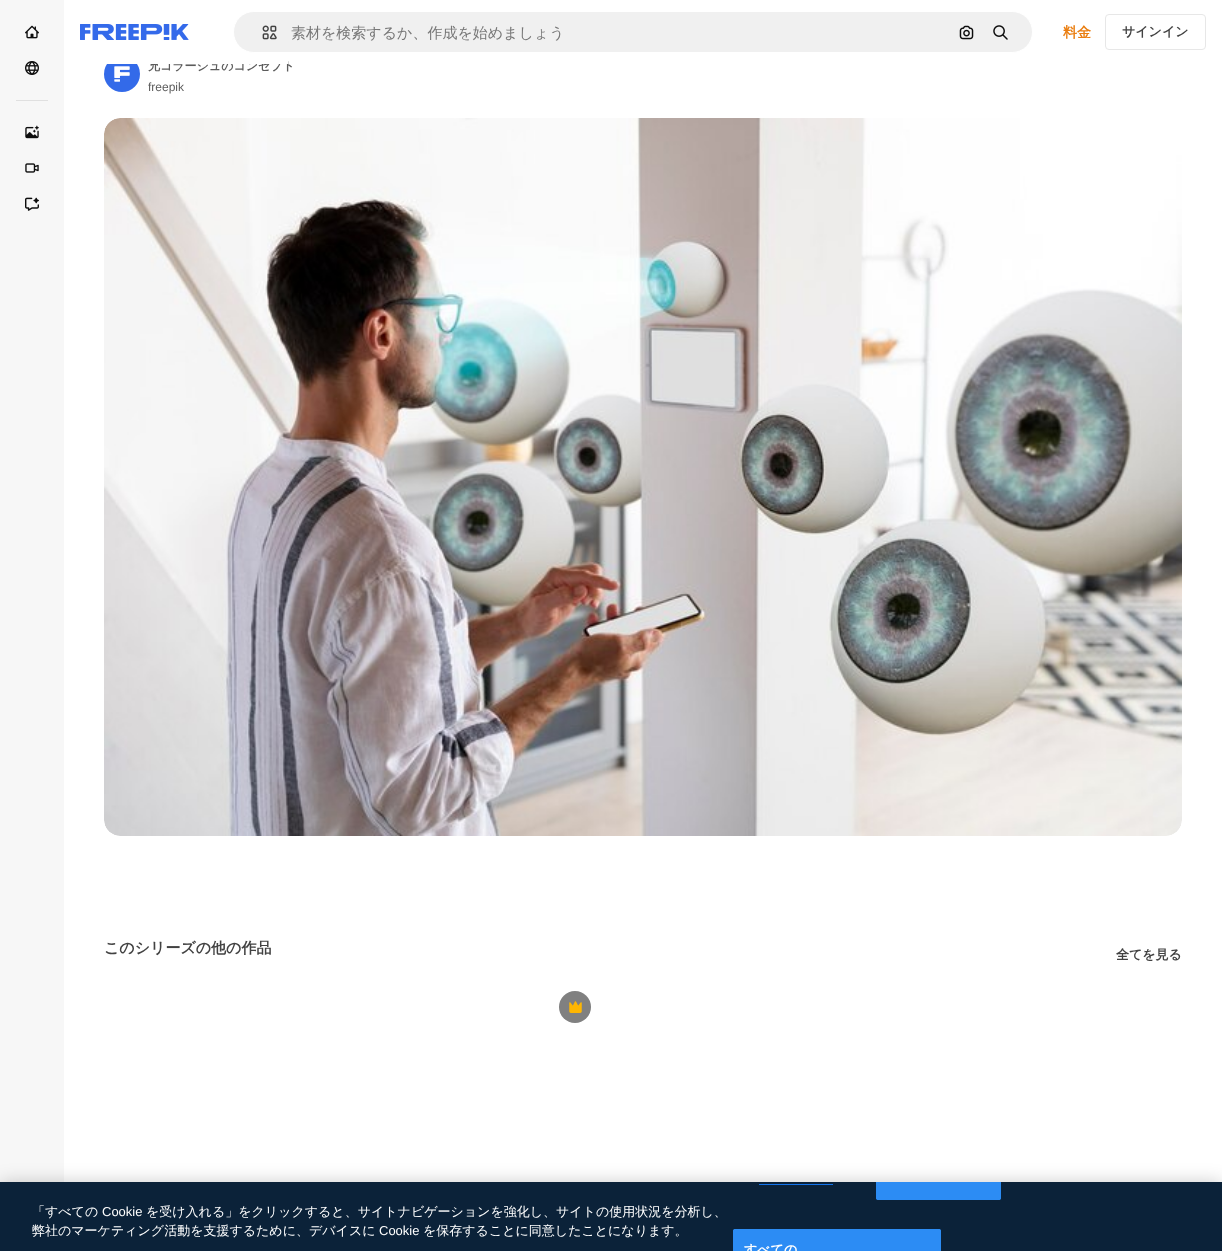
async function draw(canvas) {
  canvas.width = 1222
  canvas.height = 1251
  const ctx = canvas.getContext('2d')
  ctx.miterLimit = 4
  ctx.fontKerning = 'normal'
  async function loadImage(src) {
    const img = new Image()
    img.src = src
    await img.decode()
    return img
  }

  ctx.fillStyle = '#fff'
  ctx.fillRect(0, 0, 1222, 1251)
  ctx.fillStyle = '#f7f7f7'
  ctx.fillRect(0, 0, 64, 1182)
  ctx.drawImage(await loadImage('image0.png'), 25, 25, 14, 14)
  ctx.drawImage(await loadImage('image1.png'), 25, 61, 14, 14)
  ctx.fillStyle = '#e0e0e0'
  ctx.fillRect(16, 100, 32, 1)
  ctx.drawImage(await loadImage('image2.png'), 25, 125, 14, 14)
  ctx.drawImage(await loadImage('image3.png'), 25, 163, 14, 10)
  ctx.drawImage(await loadImage('image4.png'), 25, 197, 14, 14)
  ctx.font = 'bold 12px WenQuanYi Zen Hei'
  ctx.fillStyle = '#5c5c5c'
  ctx.fillText('兄コラージュのコンセプト', 148, 70)
  ctx.fillStyle = '#fff'
  ctx.fillRect(150, 59, 138, 5)
  ctx.drawImage(await loadImage('image5.png'), 80, 24, 109, 16)
  ctx.fillStyle = '#f0f0f0'
  ctx.beginPath()
  ctx.roundRect(233.5, 11.5, 799, 41, 20.5)
  ctx.fill()
  ctx.strokeStyle = '#fff'
  ctx.stroke()
  ctx.drawImage(await loadImage('image6.png'), 262, 25, 15, 15)
  ctx.font = '500 15px WenQuanYi Zen Hei'
  ctx.fillStyle = '#777'
  ctx.fillText('素材を検索するか、作成を始めましょう', 291, 38)
  ctx.drawImage(await loadImage('image7.png'), 959, 25, 15, 15)
  ctx.drawImage(await loadImage('image8.png'), 993, 25, 15, 15)
  ctx.font = 'bold 14px WenQuanYi Zen Hei'
  ctx.fillStyle = '#ea7e11'
  ctx.fillText('料金', 1063, 37)
  ctx.beginPath()
  ctx.roundRect(1105.5, 14.5, 100, 35, 3.5)
  ctx.strokeStyle = '#e7e7e7'
  ctx.stroke()
  ctx.font = 'bold 13px WenQuanYi Zen Hei'
  ctx.fillStyle = '#424242'
  ctx.fillText('サインイン', 1122, 36)
  ctx.drawImage(await loadImage('image9.png'), 104, 64, 36, 28)
  ctx.font = '12px Liberation Sans'
  ctx.fillStyle = '#5c5c5c'
  ctx.fillText('freepik', 148, 91)
  ctx.drawImage(await loadImage('image10.png'), 104, 118, 1078, 718)
  ctx.font = 'bold 15px WenQuanYi Zen Hei'
  ctx.fillStyle = '#424242'
  ctx.fillText('このシリーズの他の作品', 104, 953)
  ctx.font = 'bold 13px WenQuanYi Zen Hei'
  ctx.fillText('全てを見る', 1116, 959)
  ctx.fillStyle = '#808080'
  ctx.beginPath()
  ctx.arc(575, 1007, 16, 0, 2 * Math.PI)
  ctx.fill()
  ctx.drawImage(await loadImage('image11.png'), 569, 1001, 13, 12)
  ctx.fillStyle = '#00000033'
  ctx.filter = 'blur(9px)'
  ctx.beginPath()
  ctx.rect(0, 1182, 1222, 69)
  ctx.fill()
  ctx.filter = 'none'
  ctx.fillStyle = '#0b2239'
  ctx.fillRect(0, 1182, 1222, 69)
  ctx.font = '500 13px WenQuanYi Zen Hei'
  ctx.fillStyle = '#fff'
  ctx.fillText('「すべての', 32, 1216)
  ctx.font = '13px Liberation Sans'
  ctx.fillText('Cookie', 102, 1216)
  ctx.font = '500 13px WenQuanYi Zen Hei'
  ctx.fillText('を受け入れる」をクリックすると、サイトナビゲーションを強化し、サイトの使用状況を分析し、', 146, 1216)
  ctx.fillText('弊社のマーケティング活動を支援するために、デバイスに', 32, 1235)
  ctx.font = '13px Liberation Sans'
  ctx.fillText('Cookie', 379, 1235)
  ctx.font = '500 13px WenQuanYi Zen Hei'
  ctx.fillText('を保存することに同意したことになります。', 423, 1235)
  ctx.fillStyle = '#1273eb'
  ctx.fillRect(759, 1184, 74, 1)
  ctx.fillStyle = '#2c8cf4'
  ctx.beginPath()
  ctx.roundRect(876, 1182, 125, 18, [0, 0, 2, 2])
  ctx.fill()
  ctx.save()
  ctx.beginPath()
  ctx.rect(0, 1182, 1222, 69)
  ctx.clip()
  ctx.beginPath()
  ctx.roundRect(876.5, 1158.5, 124, 41, 1.5)
  ctx.strokeStyle = '#2c8cf4'
  ctx.stroke()
  ctx.restore()
  ctx.beginPath()
  ctx.roundRect(733, 1229, 208, 22, [2, 2, 0, 0])
  ctx.fill()
  ctx.beginPath()
  ctx.roundRect(733.5, 1229.5, 207, 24, 1.5)
  ctx.strokeStyle = '#2c8cf4'
  ctx.stroke()
  ctx.font = 'bold 13px WenQuanYi Zen Hei'
  ctx.fillStyle = '#fff'
  ctx.fillText('すべての', 744, 1254)
}

draw(document.querySelector('canvas'))
